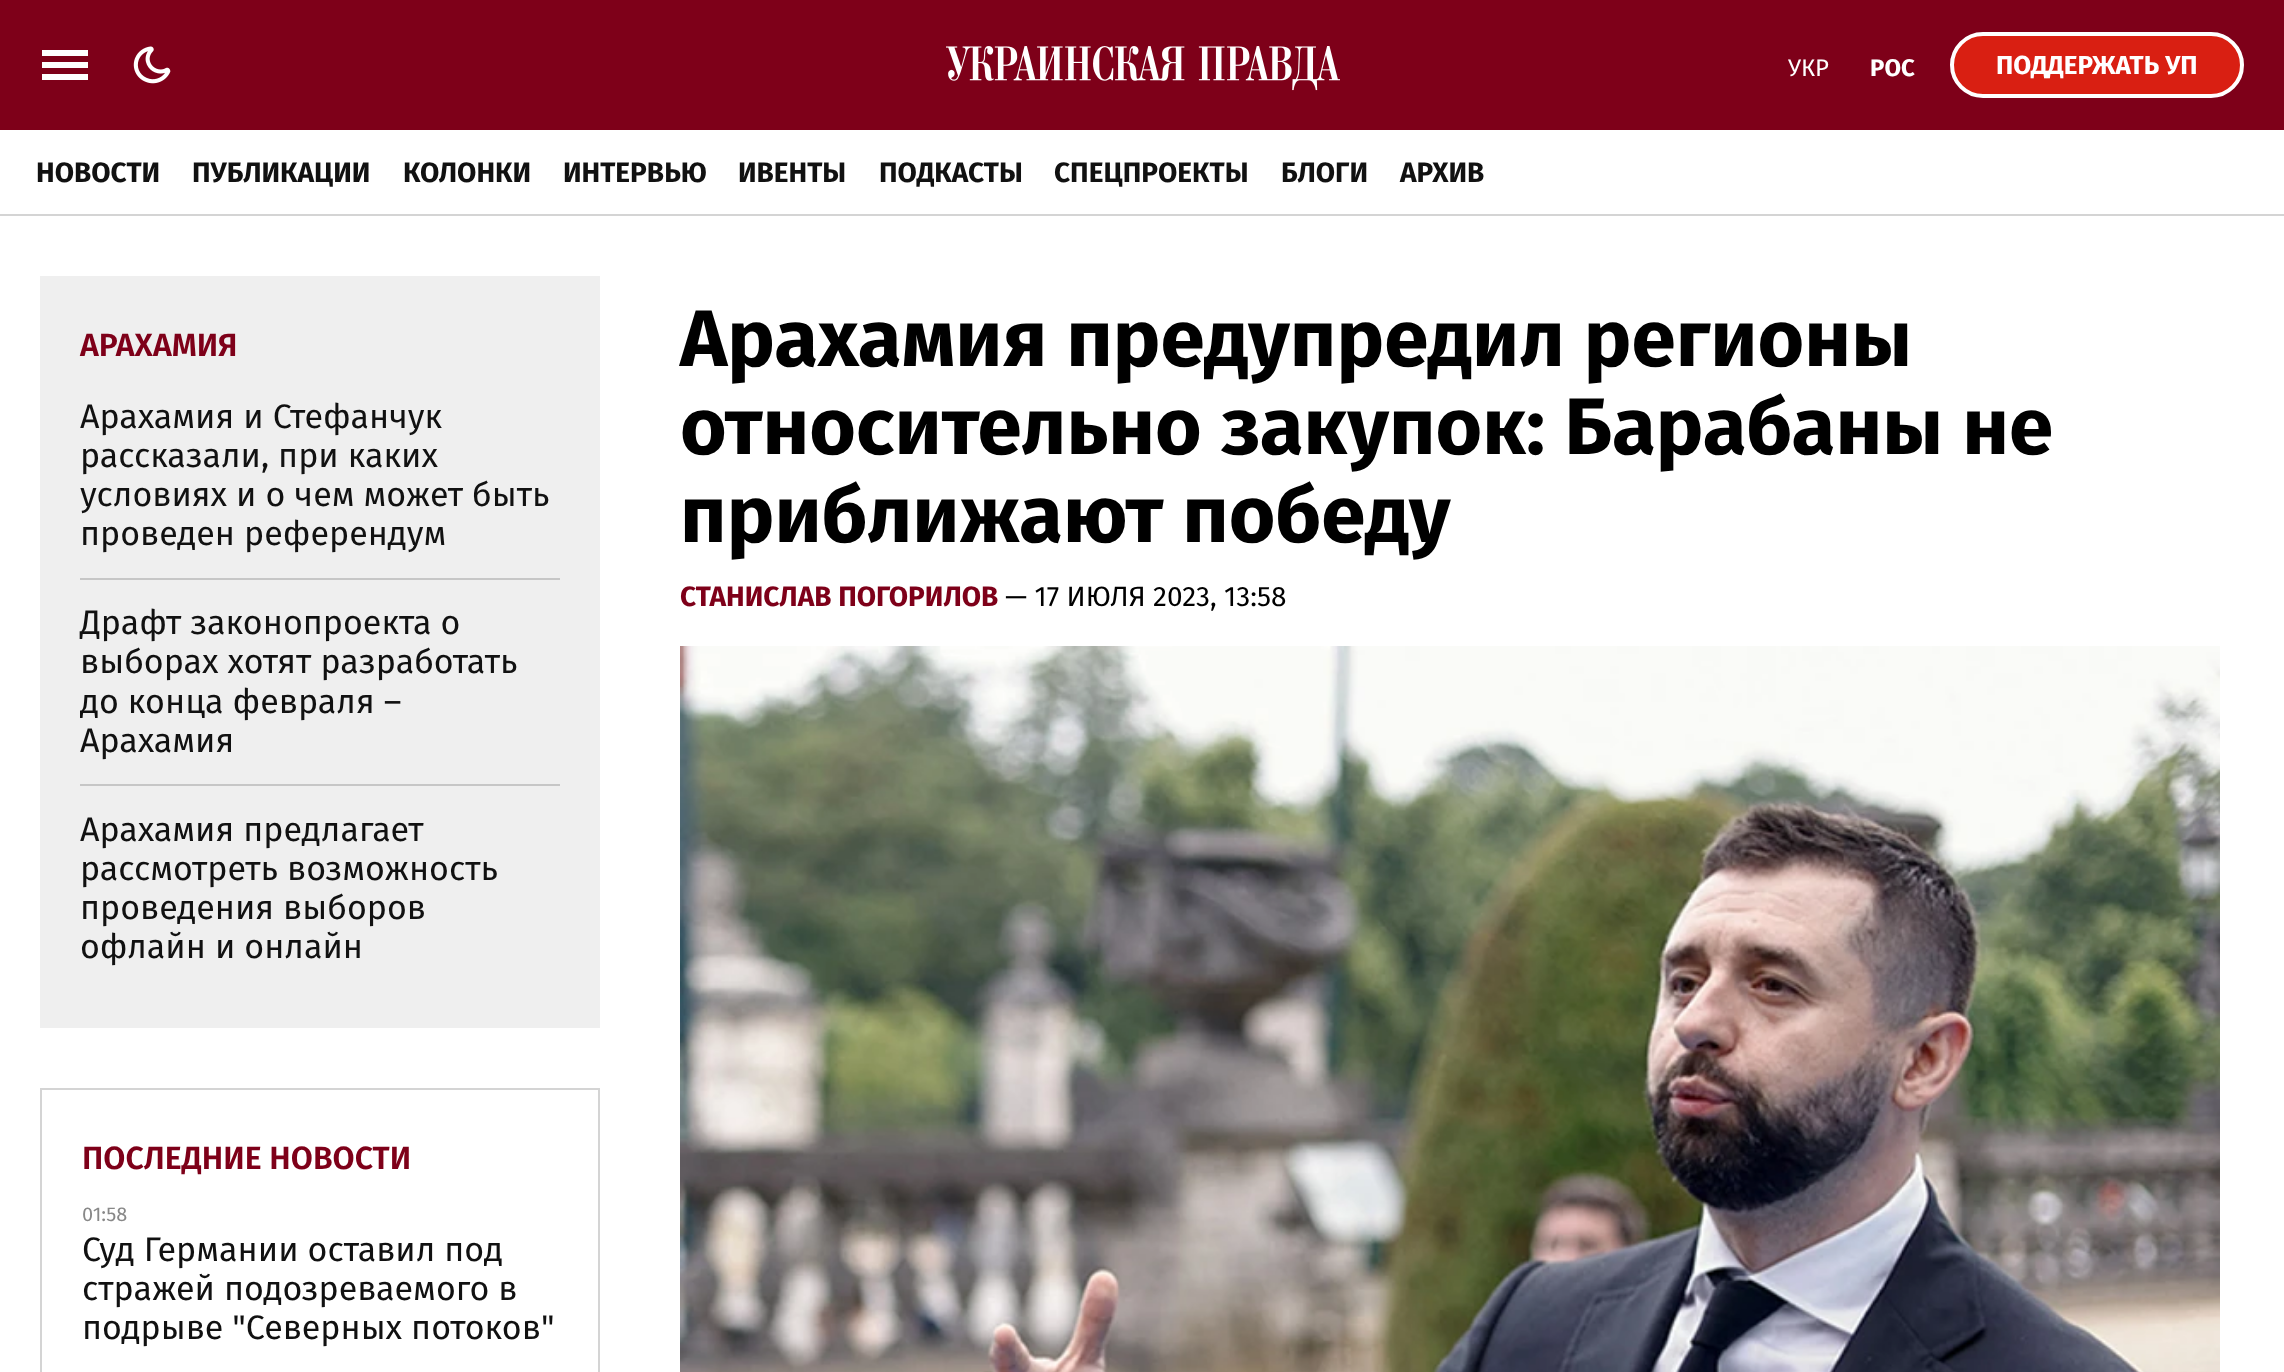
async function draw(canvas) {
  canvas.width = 2284
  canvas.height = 1372
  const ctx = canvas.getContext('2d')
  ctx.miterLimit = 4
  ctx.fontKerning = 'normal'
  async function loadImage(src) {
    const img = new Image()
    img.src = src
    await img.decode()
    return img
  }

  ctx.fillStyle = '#fff'
  ctx.fillRect(0, 0, 2284, 1372)
  ctx.fillStyle = '#7e0019'
  ctx.fillRect(0, 0, 2284, 130)
  ctx.fillStyle = '#fff'
  ctx.fillRect(42, 50, 46, 6)
  ctx.fillRect(42, 62, 46, 6)
  ctx.fillRect(42, 74, 46, 6)
  ctx.drawImage(await loadImage('image0.png'), 133, 46, 38, 38)
  ctx.drawImage(await loadImage('image1.png'), 946, 46, 394, 45)
  ctx.font = '24px Fira Sans'
  ctx.fillText('УКР', 1788, 76)
  ctx.font = 'bold 24px Fira Sans'
  ctx.fillText('РОС', 1870, 76)
  ctx.fillStyle = '#d91f12'
  ctx.beginPath()
  ctx.roundRect(1952, 34, 290, 62, 31)
  ctx.fill()
  ctx.strokeStyle = '#fff'
  ctx.lineWidth = 4
  ctx.stroke()
  ctx.font = 'bold 26px Fira Sans'
  ctx.fillStyle = '#fff'
  ctx.fillText('ПОДДЕРЖАТЬ УП', 1996, 74)
  ctx.fillStyle = '#d4d4d4'
  ctx.fillRect(0, 214, 2284, 2)
  ctx.font = 'bold 28px Fira Sans'
  ctx.fillStyle = '#111'
  ctx.fillText('НОВОСТИ', 36, 182)
  ctx.fillText('ПУБЛИКАЦИИ', 192, 182)
  ctx.fillText('КОЛОНКИ', 403, 182)
  ctx.fillText('ИНТЕРВЬЮ', 563, 182)
  ctx.fillText('ИВЕНТЫ', 738, 182)
  ctx.fillText('ПОДКАСТЫ', 879, 182)
  ctx.fillText('СПЕЦПРОЕКТЫ', 1054, 182)
  ctx.fillText('БЛОГИ', 1281, 182)
  ctx.fillText('АРХИВ', 1400, 182)
  ctx.fillStyle = '#efefef'
  ctx.fillRect(40, 276, 560, 752)
  ctx.font = '600 32px Fira Sans'
  ctx.fillStyle = '#7e0019'
  ctx.fillText('АРАХАМИЯ', 80, 356)
  ctx.font = '34px Fira Sans'
  ctx.fillStyle = '#111'
  ctx.fillText('Арахамия и Стефанчук', 80, 428)
  ctx.fillText('рассказали, при каких', 80, 467)
  ctx.fillText('условиях и о чем может быть', 80, 506)
  ctx.fillText('проведен референдум', 80, 545)
  ctx.fillStyle = '#c6c6c6'
  ctx.fillRect(80, 578, 480, 2)
  ctx.fillStyle = '#111'
  ctx.fillText('Драфт законопроекта о', 80, 634)
  ctx.fillText('выборах хотят разработать', 80, 673)
  ctx.fillText('до конца февраля –', 80, 713)
  ctx.fillText('Арахамия', 80, 752)
  ctx.fillStyle = '#c6c6c6'
  ctx.fillRect(80, 784, 480, 2)
  ctx.fillStyle = '#111'
  ctx.fillText('Арахамия предлагает', 80, 841)
  ctx.fillText('рассмотреть возможность', 80, 880)
  ctx.fillText('проведения выборов', 80, 919)
  ctx.fillText('офлайн и онлайн', 80, 958)
  ctx.strokeStyle = '#d4d4d4'
  ctx.lineWidth = 2
  ctx.strokeRect(41, 1089, 558, 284)
  ctx.font = '600 32px Fira Sans'
  ctx.fillStyle = '#7e0019'
  ctx.fillText('ПОСЛЕДНИЕ НОВОСТИ', 82, 1169)
  ctx.font = '20px Fira Sans'
  ctx.fillStyle = '#888'
  ctx.fillText('01:58', 82, 1221)
  ctx.font = '34px Fira Sans'
  ctx.fillStyle = '#111'
  ctx.fillText('Суд Германии оставил под', 82, 1261)
  ctx.fillText('стражей подозреваемого в', 82, 1300)
  ctx.fillText('подрыве "Северных потоков"', 82, 1339)
  ctx.font = 'bold 80px Fira Sans'
  ctx.fillStyle = '#000'
  ctx.fillText('Арахамия предупредил регионы', 680, 366)
  ctx.fillText('относительно закупок: Барабаны не', 680, 454)
  ctx.fillText('приближают победу', 680, 542)
  ctx.font = 'bold 28px Fira Sans'
  ctx.fillStyle = '#7e0019'
  ctx.fillText('СТАНИСЛАВ ПОГОРИЛОВ', 680, 606)
  ctx.font = '28px Fira Sans'
  ctx.fillStyle = '#000'
  ctx.fillText('— 17 ИЮЛЯ 2023, 13:58', 1005, 606)
  ctx.drawImage(await loadImage('image2.png'), 680, 646, 1540, 726)
}

draw(document.querySelector('canvas'))
